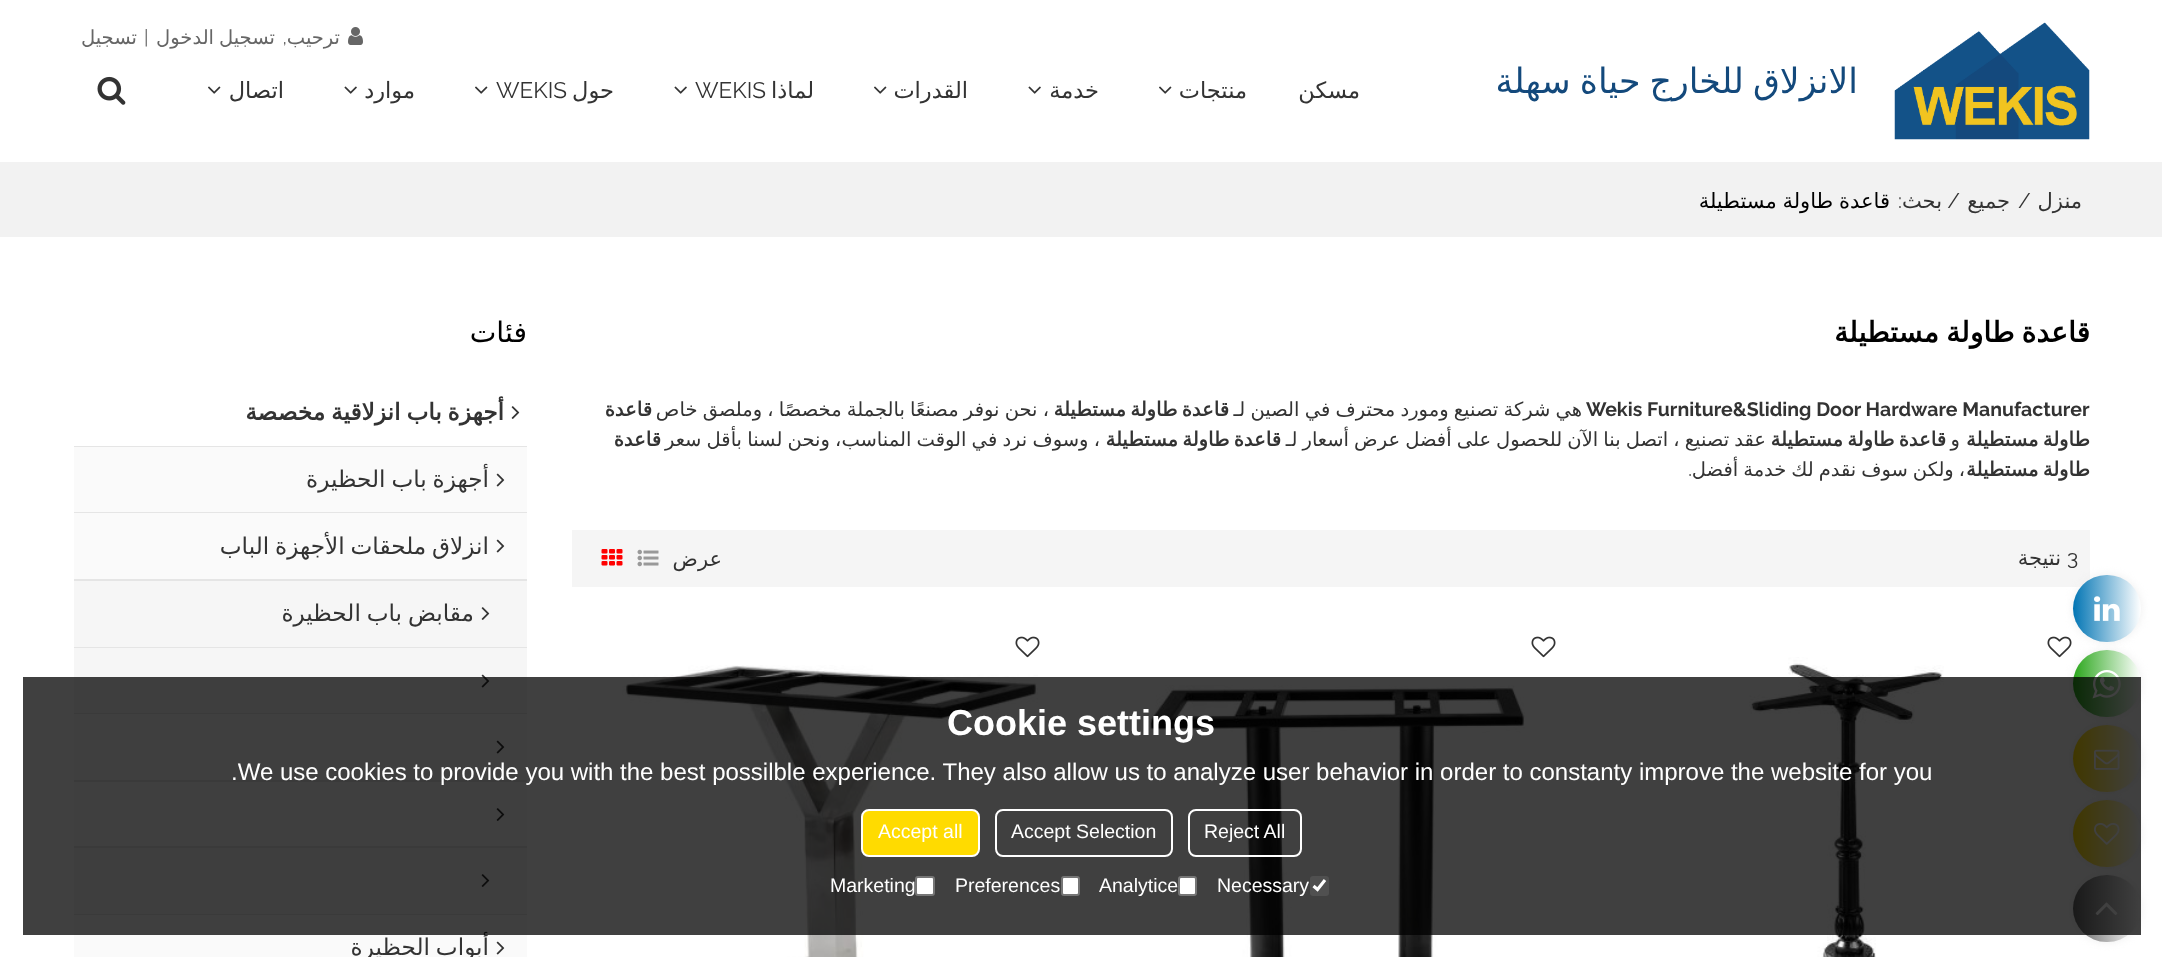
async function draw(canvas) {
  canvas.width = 2162
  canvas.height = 957
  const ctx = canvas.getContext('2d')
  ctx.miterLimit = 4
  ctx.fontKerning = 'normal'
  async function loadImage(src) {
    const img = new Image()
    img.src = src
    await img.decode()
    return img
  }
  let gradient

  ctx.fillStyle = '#fff'
  ctx.fillRect(0, 0, 2162, 957)
  ctx.fillStyle = '#f5f5f5'
  ctx.fillRect(572, 530, 1518, 57)
  ctx.drawImage(await loadImage('image12.png'), 2047, 636, 25, 22)
  ctx.fillStyle = '#eee'
  ctx.filter = 'blur(4px)'
  ctx.beginPath()
  ctx.roundRect(2073, 575, 68, 67, 33.5)
  ctx.fill()
  ctx.filter = 'none'
  gradient = ctx.createLinearGradient(2073, 608, 2141, 608)
  gradient.addColorStop(0, '#0275b4')
  gradient.addColorStop(1, '#fff')
  ctx.fillStyle = gradient
  ctx.beginPath()
  ctx.roundRect(2073, 575, 68, 67, 33.5)
  ctx.fill()
  ctx.drawImage(await loadImage('image0.png'), 2094, 596, 26, 25)
  ctx.fillStyle = '#eee'
  ctx.filter = 'blur(4px)'
  ctx.beginPath()
  ctx.roundRect(2073, 650, 68, 67, 33.5)
  ctx.fill()
  ctx.filter = 'none'
  gradient = ctx.createLinearGradient(2073, 683, 2141, 683)
  gradient.addColorStop(0, '#29a61a')
  gradient.addColorStop(1, '#fff')
  ctx.fillStyle = gradient
  ctx.beginPath()
  ctx.roundRect(2073, 650, 68, 67, 33.5)
  ctx.fill()
  ctx.drawImage(await loadImage('image1.png'), 2092, 670, 29, 29)
  ctx.fillStyle = '#eee'
  ctx.filter = 'blur(4px)'
  ctx.beginPath()
  ctx.roundRect(2073, 725, 68, 67, 33.5)
  ctx.fill()
  ctx.filter = 'none'
  gradient = ctx.createLinearGradient(2073, 758, 2141, 758)
  gradient.addColorStop(0, '#ffdb00')
  gradient.addColorStop(1, '#fff')
  ctx.fillStyle = gradient
  ctx.beginPath()
  ctx.roundRect(2073, 725, 68, 67, 33.5)
  ctx.fill()
  ctx.drawImage(await loadImage('image2.png'), 2094, 749, 26, 21)
  ctx.fillStyle = '#eee'
  ctx.filter = 'blur(4px)'
  ctx.beginPath()
  ctx.roundRect(2073, 800, 68, 67, 33.5)
  ctx.fill()
  ctx.filter = 'none'
  gradient = ctx.createLinearGradient(2073, 833, 2141, 833)
  gradient.addColorStop(0, '#ffdb00')
  gradient.addColorStop(1, '#fff')
  ctx.fillStyle = gradient
  ctx.beginPath()
  ctx.roundRect(2073, 800, 68, 67, 33.5)
  ctx.fill()
  ctx.drawImage(await loadImage('image3.png'), 2094, 823, 26, 22)
  ctx.fillStyle = '#eee'
  ctx.filter = 'blur(4px)'
  ctx.beginPath()
  ctx.roundRect(2073, 875, 68, 67, 33.5)
  ctx.fill()
  ctx.filter = 'none'
  gradient = ctx.createLinearGradient(2073, 908, 2141, 908)
  gradient.addColorStop(0, '#666')
  gradient.addColorStop(1, '#fff')
  ctx.fillStyle = gradient
  ctx.beginPath()
  ctx.roundRect(2073, 875, 68, 67, 33.5)
  ctx.fill()
  ctx.drawImage(await loadImage('image4.png'), 2095, 902, 23, 14)
  ctx.drawImage(await loadImage('image5.png'), 1894, 22, 196, 118)
  ctx.wordSpacing = '-2px'
  ctx.direction = 'rtl'
  ctx.font = '34.75px DejaVu Sans'
  ctx.fillStyle = '#13497c'
  ctx.fillText('الانزلاق للخارج حياة سهلة', 1858, 93)
  ctx.drawImage(await loadImage('image6.png'), 348, 27, 15, 18)
  ctx.wordSpacing = '0px'
  ctx.font = '19.5px DejaVu Sans'
  ctx.fillStyle = '#666'
  ctx.fillText('ترحيب', 340, 44)
  ctx.font = '19.5px Raleway'
  ctx.fillText(',', 287, 44)
  ctx.wordSpacing = '-1.25px'
  ctx.font = '19.5px DejaVu Sans'
  ctx.fillText('تسجيل الدخول', 275, 44)
  ctx.wordSpacing = '0px'
  ctx.direction = 'ltr'
  ctx.font = '19.5px Raleway'
  ctx.fillText('|', 144, 44)
  ctx.direction = 'rtl'
  ctx.font = '19.5px DejaVu Sans'
  ctx.fillText('تسجيل', 137, 44)
  ctx.font = '22.5px DejaVu Sans'
  ctx.fillStyle = '#333'
  ctx.fillText('مسكن', 1360, 98)
  ctx.fillText('منتجات', 1247, 98)
  ctx.drawImage(await loadImage('image7.png'), 1159, 86, 13, 8)
  ctx.fillText('خدمة', 1099, 98)
  ctx.drawImage(await loadImage('image8.png'), 1028, 86, 13, 8)
  ctx.fillText('القدرات', 968, 98)
  ctx.drawImage(await loadImage('image7.png'), 874, 86, 13, 8)
  ctx.fillText('لماذا', 814, 98)
  ctx.direction = 'ltr'
  ctx.font = '22.5px Raleway'
  ctx.fillText('WEKIS', 695, 98)
  ctx.drawImage(await loadImage('image8.png'), 674, 86, 13, 8)
  ctx.direction = 'rtl'
  ctx.font = '22.5px DejaVu Sans'
  ctx.fillText('حول', 614, 98)
  ctx.direction = 'ltr'
  ctx.font = '22.5px Raleway'
  ctx.fillText('WEKIS', 496, 98)
  ctx.drawImage(await loadImage('image7.png'), 475, 86, 13, 8)
  ctx.direction = 'rtl'
  ctx.font = '22.5px DejaVu Sans'
  ctx.fillText('موارد', 415, 98)
  ctx.drawImage(await loadImage('image8.png'), 344, 86, 13, 8)
  ctx.fillText('اتصال', 284, 98)
  ctx.drawImage(await loadImage('image7.png'), 208, 86, 13, 8)
  ctx.drawImage(await loadImage('image9.png'), 97, 76, 29, 29)
  ctx.fillStyle = '#f2f2f2'
  ctx.fillRect(0, 162, 2162, 75)
  ctx.font = '21px DejaVu Sans'
  ctx.fillStyle = '#333'
  ctx.fillText('منزل', 2082, 208)
  ctx.direction = 'ltr'
  ctx.font = '21px Raleway'
  ctx.fillText('/', 2018, 208)
  ctx.direction = 'rtl'
  ctx.font = '21px DejaVu Sans'
  ctx.fillText('جميع', 2010, 208)
  ctx.font = '21px Raleway'
  ctx.fillText('/', 1960, 208)
  ctx.font = '21px DejaVu Sans'
  ctx.fillText('بحث', 1942, 208)
  ctx.font = '21px Raleway'
  ctx.fillText(':', 1902, 208)
  ctx.wordSpacing = '-1px'
  ctx.font = '21px DejaVu Sans'
  ctx.fillStyle = '#000'
  ctx.fillText('قاعدة طاولة مستطيلة', 1890, 208)
  ctx.save()
  ctx.beginPath()
  ctx.rect(572, 311, 1518, 43)
  ctx.clip()
  ctx.wordSpacing = '-2px'
  ctx.font = 'bold 28.25px DejaVu Sans'
  ctx.fillText('قاعدة طاولة مستطيلة', 2090, 342)
  ctx.restore()
  ctx.wordSpacing = '0px'
  ctx.direction = 'ltr'
  ctx.font = 'bold 19.5px Raleway'
  ctx.fillStyle = '#333'
  ctx.fillText('Wekis Furniture&Sliding Door Hardware Manufacturer', 1586, 416)
  ctx.wordSpacing = '-1px'
  ctx.direction = 'rtl'
  ctx.font = '19.5px DejaVu Sans'
  ctx.fillText('هي شركة تصنيع ومورد محترف في الصين لـ', 1582, 416)
  ctx.wordSpacing = '-2px'
  ctx.font = 'bold 19.5px DejaVu Sans'
  ctx.fillText('قاعدة طاولة مستطيلة', 1229, 416)
  ctx.wordSpacing = '-1px'
  ctx.font = '19.5px DejaVu Sans'
  ctx.fillText('، نحن نوفر مصنعًا بالجملة مخصصًا ، وملصق خاص', 1049, 416)
  ctx.wordSpacing = '0px'
  ctx.font = 'bold 19.5px DejaVu Sans'
  ctx.fillText('قاعدة', 652, 416)
  ctx.wordSpacing = '-2px'
  ctx.fillText('طاولة مستطيلة', 2090, 446)
  ctx.wordSpacing = '0px'
  ctx.font = '19.5px DejaVu Sans'
  ctx.fillText('و', 1960, 446)
  ctx.wordSpacing = '-2px'
  ctx.font = 'bold 19.5px DejaVu Sans'
  ctx.fillText('قاعدة طاولة مستطيلة', 1946, 446)
  ctx.wordSpacing = '-1.1px'
  ctx.font = '19.5px DejaVu Sans'
  ctx.fillText('عقد تصنيع ، اتصل بنا الآن للحصول على أفضل عرض أسعار لـ', 1766, 446)
  ctx.wordSpacing = '-2px'
  ctx.font = 'bold 19.5px DejaVu Sans'
  ctx.fillText('قاعدة طاولة مستطيلة', 1281, 446)
  ctx.wordSpacing = '-1px'
  ctx.font = '19.5px DejaVu Sans'
  ctx.fillText('، وسوف نرد في الوقت المناسب، ونحن لسنا بأقل سعر', 1100, 446)
  ctx.wordSpacing = '0px'
  ctx.font = 'bold 19.5px DejaVu Sans'
  ctx.fillText('قاعدة', 661, 446)
  ctx.wordSpacing = '-2px'
  ctx.fillText('طاولة مستطيلة', 2090, 476)
  ctx.wordSpacing = '-1.25px'
  ctx.font = '19.5px DejaVu Sans'
  ctx.fillText('، ولكن سوف نقدم لك خدمة أفضل', 1965, 476)
  ctx.wordSpacing = '0px'
  ctx.font = '19.5px Raleway'
  ctx.fillText('.', 1692, 476)
  ctx.direction = 'ltr'
  ctx.font = '21px Raleway'
  ctx.fillText('3', 2067, 565)
  ctx.direction = 'rtl'
  ctx.font = '21px DejaVu Sans'
  ctx.fillText('نتيجة', 2061, 565)
  ctx.fillText('عرض', 722, 566)
  ctx.drawImage(await loadImage('image10.png'), 637, 549, 22, 18)
  ctx.drawImage(await loadImage('image11.png'), 601, 549, 22, 17)
  ctx.drawImage(await loadImage('image13.png'), 1749, 657, 195, 300)
  ctx.drawImage(await loadImage('image12.png'), 1531, 636, 25, 22)
  ctx.drawImage(await loadImage('image14.png'), 1146, 685, 379, 272)
  ctx.drawImage(await loadImage('image12.png'), 1015, 636, 25, 22)
  ctx.drawImage(await loadImage('image15.png'), 622, 665, 416, 292)
  ctx.font = '28.25px DejaVu Sans'
  ctx.fillStyle = '#000'
  ctx.fillText('فئات', 527, 342)
  ctx.fillStyle = '#e5e5e5'
  ctx.fillRect(74, 446, 453, 1)
  ctx.drawImage(await loadImage('image16.png'), 511, 406, 9, 13)
  ctx.wordSpacing = '-1.5px'
  ctx.font = 'bold 23.2px DejaVu Sans'
  ctx.fillStyle = '#333'
  ctx.fillText('أجهزة باب انزلاقية مخصصة', 504, 420)
  ctx.fillStyle = '#fafafa'
  ctx.fillRect(74, 447, 453, 65)
  ctx.fillStyle = '#e5e5e5'
  ctx.fillRect(74, 512, 453, 1)
  ctx.drawImage(await loadImage('image17.png'), 496, 473, 9, 14)
  ctx.font = '23.2px DejaVu Sans'
  ctx.fillStyle = '#333'
  ctx.fillText('أجهزة باب الحظيرة', 489, 487)
  ctx.fillStyle = '#fafafa'
  ctx.fillRect(74, 513, 453, 66)
  ctx.fillStyle = '#e5e5e5'
  ctx.fillRect(74, 579, 453, 2)
  ctx.drawImage(await loadImage('image17.png'), 496, 539, 9, 14)
  ctx.fillStyle = '#333'
  ctx.fillText('انزلاق ملحقات الأجهزة الباب', 489, 554)
  ctx.fillStyle = '#f6f6f6'
  ctx.fillRect(74, 581, 453, 66)
  ctx.fillStyle = '#e5e5e5'
  ctx.fillRect(74, 647, 453, 1)
  ctx.drawImage(await loadImage('image18.png'), 481, 607, 9, 13)
  ctx.fillStyle = '#333'
  ctx.fillText('مقابض باب الحظيرة', 474, 621)
  ctx.fillStyle = '#f6f6f6'
  ctx.fillRect(74, 648, 453, 65)
  ctx.fillStyle = '#e5e5e5'
  ctx.fillRect(74, 713, 453, 1)
  ctx.drawImage(await loadImage('image19.png'), 481, 674, 9, 14)
  ctx.fillStyle = '#fafafa'
  ctx.fillRect(74, 714, 453, 66)
  ctx.fillStyle = '#e5e5e5'
  ctx.fillRect(74, 780, 453, 2)
  ctx.drawImage(await loadImage('image17.png'), 496, 740, 9, 14)
  ctx.fillStyle = '#fafafa'
  ctx.fillRect(74, 782, 453, 64)
  ctx.fillStyle = '#e5e5e5'
  ctx.fillRect(74, 846, 453, 2)
  ctx.drawImage(await loadImage('image20.png'), 496, 808, 9, 13)
  ctx.fillStyle = '#f6f6f6'
  ctx.fillRect(74, 848, 453, 66)
  ctx.fillStyle = '#e5e5e5'
  ctx.fillRect(74, 914, 453, 1)
  ctx.drawImage(await loadImage('image18.png'), 481, 874, 9, 13)
  ctx.fillStyle = '#fafafa'
  ctx.fillRect(74, 915, 453, 42)
  ctx.drawImage(await loadImage('image17.png'), 496, 941, 9, 14)
  ctx.fillStyle = '#333'
  ctx.fillText('أبواب الحظيرة', 489, 955)
  ctx.fillStyle = '#000000bf'
  ctx.fillRect(23, 677, 2118, 258)
  ctx.wordSpacing = '0px'
  ctx.direction = 'ltr'
  ctx.font = 'bold 36px Liberation Sans'
  ctx.fillStyle = '#fff'
  ctx.fillText('Cookie settings', 947, 735)
  ctx.font = '24px Liberation Sans'
  ctx.fillText('.We use cookies to provide you with the best possilble experience. They also allow us to analyze user behavior in order to constanty improve the website for you', 231, 780)
  ctx.beginPath()
  ctx.roundRect(1189, 810, 112, 46, 7)
  ctx.strokeStyle = '#fff'
  ctx.lineWidth = 2
  ctx.stroke()
  ctx.font = '19.5px Liberation Sans'
  ctx.fillText('Reject All', 1204, 838)
  ctx.beginPath()
  ctx.roundRect(996, 810, 176, 46, 7)
  ctx.stroke()
  ctx.fillText('Accept Selection', 1011, 838)
  ctx.fillStyle = '#ffdb00'
  ctx.beginPath()
  ctx.roundRect(862, 810, 117, 46, 7)
  ctx.fill()
  ctx.stroke()
  ctx.fillStyle = '#fff'
  ctx.fillText('Accept all', 878, 838)
  ctx.fillStyle = '#505050'
  ctx.beginPath()
  ctx.roundRect(1310, 876, 19, 20, 3)
  ctx.fill()
  ctx.beginPath()
  ctx.moveTo(1313.5, 886)
  ctx.lineTo(1317.5, 889.5)
  ctx.lineTo(1325, 880)
  ctx.lineWidth = 3.1
  ctx.stroke()
  ctx.fillStyle = '#fff'
  ctx.fillText('Necessary', 1217, 892)
  ctx.beginPath()
  ctx.roundRect(1179, 877, 17, 18, 2)
  ctx.fill()
  ctx.strokeStyle = '#767676'
  ctx.lineWidth = 2
  ctx.stroke()
  ctx.fillText('Analytice', 1099, 892)
  ctx.beginPath()
  ctx.roundRect(1062, 877, 17, 18, 2)
  ctx.fill()
  ctx.stroke()
  ctx.fillText('Preferences', 955, 892)
  ctx.beginPath()
  ctx.roundRect(916, 877, 18, 18, 2)
  ctx.fill()
  ctx.stroke()
  ctx.fillText('Marketing', 830, 892)
}

draw(document.querySelector('canvas'))
